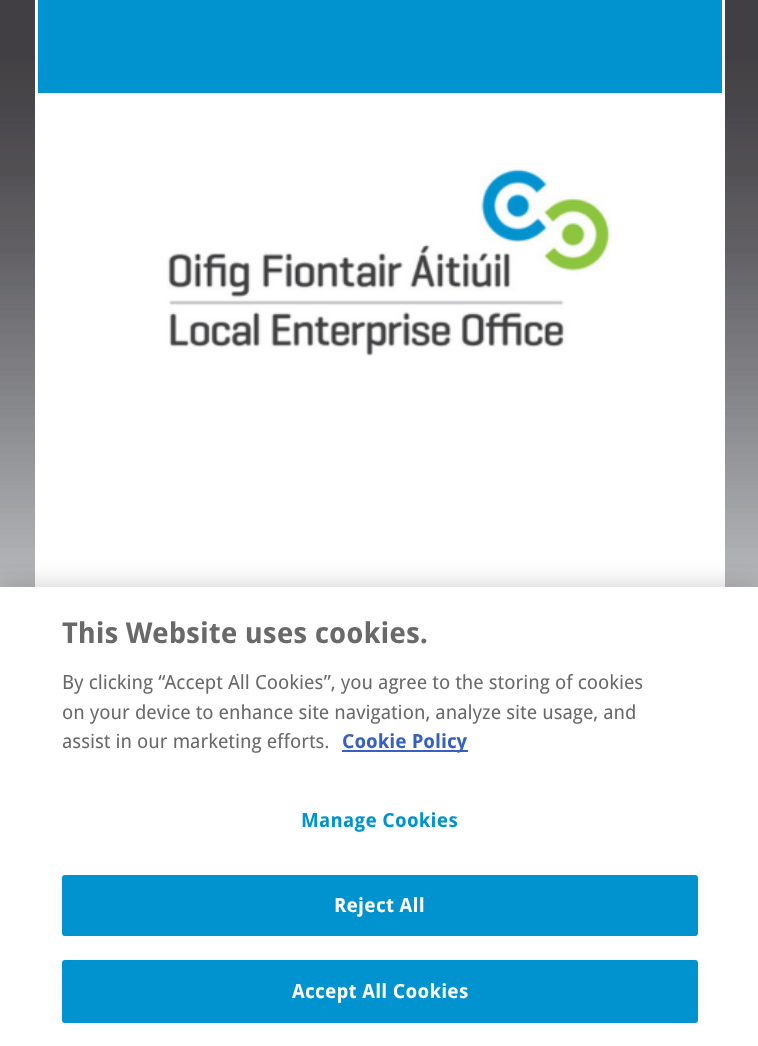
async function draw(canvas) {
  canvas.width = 758
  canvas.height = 1046
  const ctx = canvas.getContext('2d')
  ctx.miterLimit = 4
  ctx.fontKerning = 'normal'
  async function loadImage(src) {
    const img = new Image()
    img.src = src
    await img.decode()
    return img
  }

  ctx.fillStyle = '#fff'
  ctx.fillRect(0, 0, 758, 1046)
  ctx.drawImage(await loadImage('image0.png'), 0, 0, 758, 587)
  ctx.fillRect(35, 0, 690, 587)
  ctx.fillStyle = '#0093d0'
  ctx.fillRect(38, 0, 684, 93)
  ctx.drawImage(await loadImage('image1.png'), 167, 169, 444, 187)
  ctx.fillStyle = '#00000033'
  ctx.filter = 'blur(13.5px)'
  ctx.beginPath()
  ctx.rect(0, 587, 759, 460)
  ctx.fill()
  ctx.filter = 'none'
  ctx.fillStyle = '#fff'
  ctx.fillRect(0, 587, 758, 459)
  ctx.font = 'bold 28.75px Droid Sans'
  ctx.fillStyle = '#696969'
  ctx.fillText('This Website uses cookies.', 62, 643)
  ctx.font = '19.5px Droid Sans'
  ctx.fillText('By clicking “Accept All Cookies”, you agree to the storing of cookies', 62, 689)
  ctx.fillText('on your device to enhance site navigation, analyze site usage, and', 62, 719)
  ctx.fillText('assist in our marketing efforts.', 62, 748)
  ctx.fillStyle = '#3860be'
  ctx.fillRect(342, 750, 126, 2)
  ctx.font = 'bold 19.5px Droid Sans'
  ctx.fillText('Cookie Policy', 342, 748)
  ctx.letterSpacing = '0.25px'
  ctx.fillStyle = '#0093d0'
  ctx.fillText('Manage Cookies', 301, 827)
  ctx.beginPath()
  ctx.roundRect(63, 876, 634, 59, 2)
  ctx.fill()
  ctx.strokeStyle = '#0093d0'
  ctx.lineWidth = 2
  ctx.stroke()
  ctx.fillStyle = '#fff'
  ctx.fillText('Reject All', 334, 912)
  ctx.fillStyle = '#0093d0'
  ctx.beginPath()
  ctx.roundRect(63, 961, 634, 61, 2)
  ctx.fill()
  ctx.stroke()
  ctx.fillStyle = '#fff'
  ctx.fillText('Accept All Cookies', 292, 998)
}

draw(document.querySelector('canvas'))
